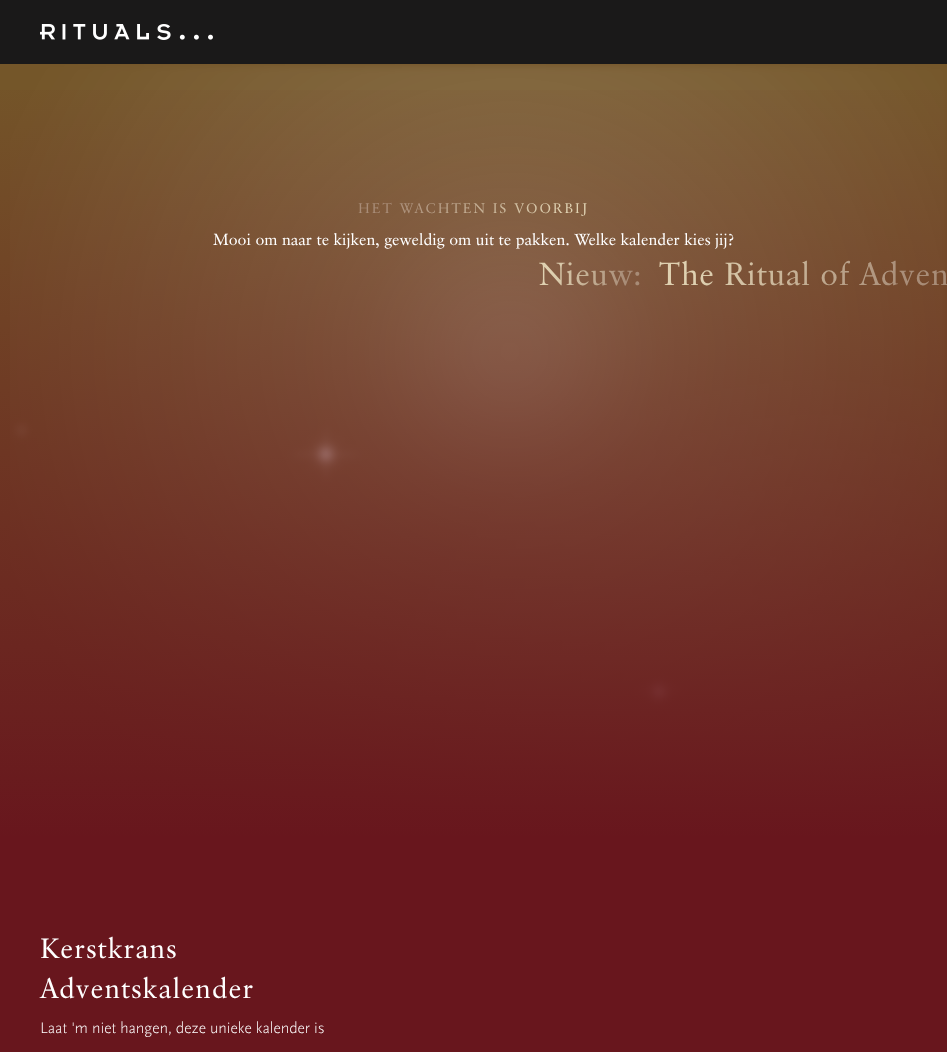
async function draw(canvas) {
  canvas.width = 947
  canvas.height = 1052
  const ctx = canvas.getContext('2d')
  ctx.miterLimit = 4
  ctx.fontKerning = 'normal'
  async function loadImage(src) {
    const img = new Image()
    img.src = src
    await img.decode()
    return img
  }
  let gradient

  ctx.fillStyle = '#68161d'
  ctx.fillRect(0, 0, 947, 1052)
  ctx.fillStyle = '#1a1919'
  ctx.fillRect(0, 0, 947, 64)
  ctx.drawImage(await loadImage('image0.png'), 40, 24, 173, 16)
  ctx.fillStyle = '#745629'
  ctx.fillRect(0, 64, 947, 772)
  ctx.drawImage(await loadImage('image1.png'), 10, 64, 937, 772)
  gradient = ctx.createLinearGradient(473, 64, 474, 840)
  gradient.addColorStop(0, '#68161d00')
  gradient.addColorStop(1, '#68161d')
  ctx.fillStyle = gradient
  ctx.fillRect(0, 90, 947, 746)
  ctx.letterSpacing = '2px'
  ctx.font = '14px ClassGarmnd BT'
  gradient = ctx.createLinearGradient(413, 146, 534, 270)
  gradient.addColorStop(0.17, '#a88c77')
  gradient.addColorStop(0.88, '#dfd1b1')
  ctx.fillStyle = gradient
  ctx.fillText('HET WACHTEN IS VOORBIJ', 358, 213)
  ctx.letterSpacing = '0px'
  ctx.font = '16px ClassGarmnd BT'
  ctx.fillStyle = '#fff'
  ctx.fillText('Mooi om naar te kijken, geweldig om uit te pakken. Welke kalender kies jij?', 213, 245)
  ctx.letterSpacing = '0.6px'
  ctx.font = '32px ClassGarmnd BT'
  gradient = ctx.createLinearGradient(644, 276, 538, 273)
  gradient.addColorStop(0.17, '#a88c77')
  gradient.addColorStop(0.88, '#dfd1b1')
  ctx.fillStyle = gradient
  ctx.fillText('Nieuw:', 539, 285)
  gradient = ctx.createLinearGradient(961, 277, 659, 272)
  gradient.addColorStop(0.17, '#a88c77')
  gradient.addColorStop(0.88, '#dfd1b1')
  ctx.fillStyle = gradient
  ctx.fillText('The Ritual of Adven', 659, 285)
  ctx.letterSpacing = '1px'
  ctx.font = '28px ClassGarmnd BT'
  ctx.fillStyle = '#fff'
  ctx.fillText('Kerstkrans', 40, 958)
  ctx.fillText('Adventskalender', 40, 998)
  ctx.letterSpacing = '0px'
  ctx.font = '300 16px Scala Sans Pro'
  ctx.fillText('Laat \'m niet hangen, deze unieke kalender is', 40, 1033)
}

draw(document.querySelector('canvas'))
